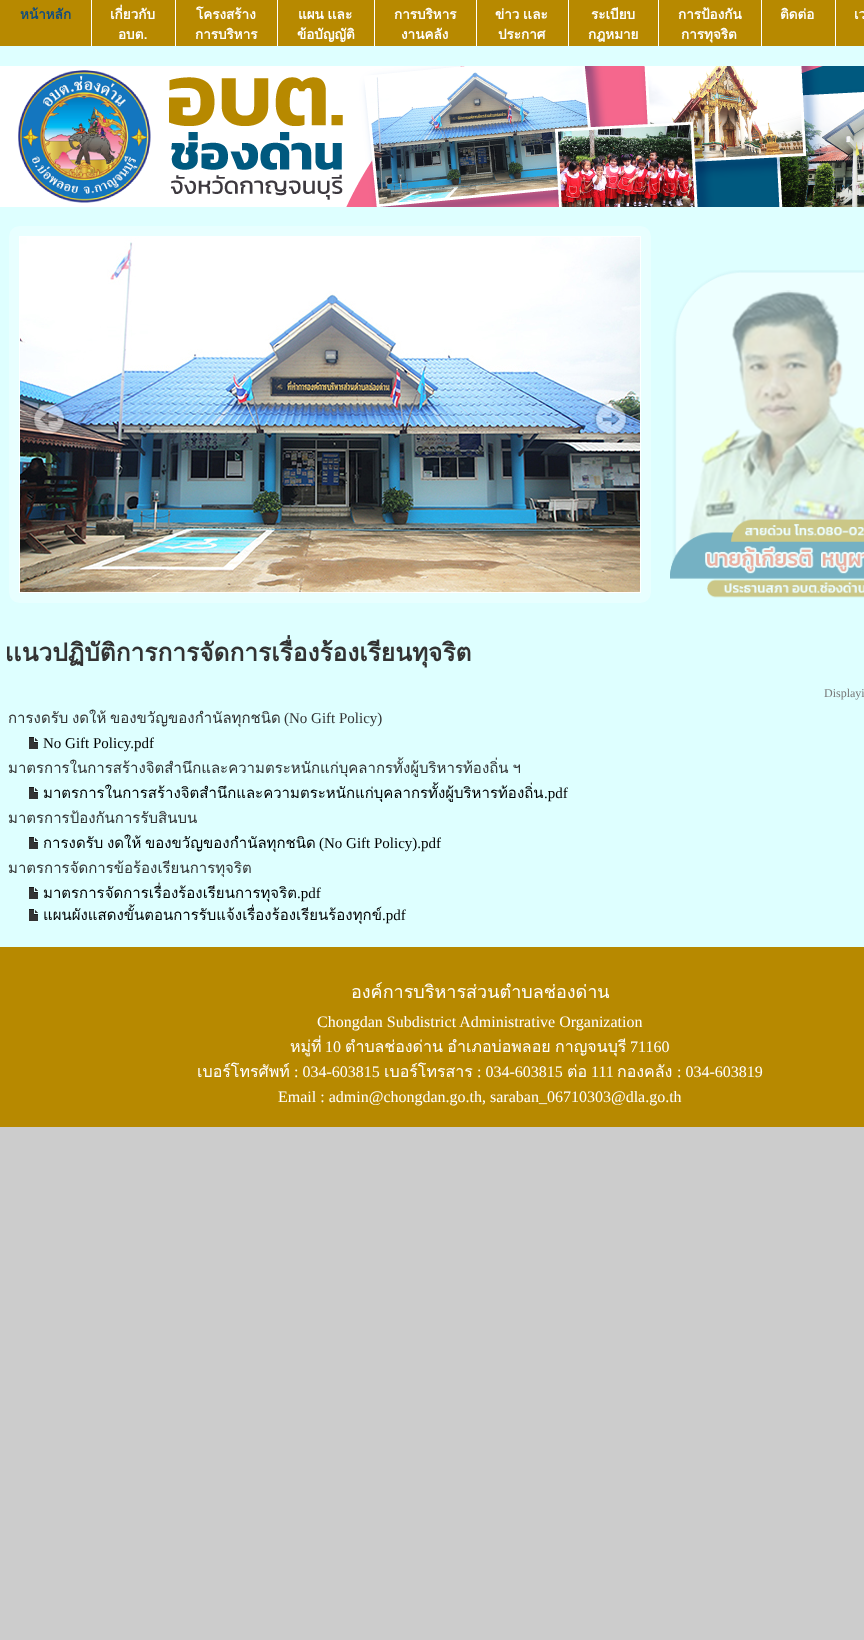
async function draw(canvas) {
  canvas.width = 864
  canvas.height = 1640
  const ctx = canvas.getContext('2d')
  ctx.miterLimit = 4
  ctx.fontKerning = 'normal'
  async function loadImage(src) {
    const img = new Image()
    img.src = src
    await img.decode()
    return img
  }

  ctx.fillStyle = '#ccc'
  ctx.fillRect(0, 0, 864, 1640)
  ctx.fillStyle = '#b78900'
  ctx.fillRect(0, 0, 864, 46)
  ctx.fillStyle = '#fff'
  ctx.fillRect(91, 0, 1, 46)
  ctx.font = 'bold 13.5px Loma'
  ctx.fillStyle = '#0f4c82'
  ctx.fillText('หน้าหลัก', 20, 19)
  ctx.fillStyle = '#fff'
  ctx.fillRect(175, 0, 1, 46)
  ctx.fillText('เกี่ยวกับ', 110, 19)
  ctx.fillText('อบต.', 118, 39)
  ctx.fillRect(277, 0, 1, 46)
  ctx.fillText('โครงสร้าง', 196, 19)
  ctx.fillText('การบริหาร', 195, 39)
  ctx.fillRect(374, 0, 1, 46)
  ctx.wordSpacing = '-1px'
  ctx.fillText('แผน เเละ', 298, 19)
  ctx.wordSpacing = '0px'
  ctx.fillText('ข้อบัญญัติ', 297, 39)
  ctx.fillRect(476, 0, 1, 46)
  ctx.fillText('การบริหาร', 394, 19)
  ctx.fillText('งานคลัง', 401, 39)
  ctx.fillRect(568, 0, 1, 46)
  ctx.wordSpacing = '-1px'
  ctx.fillText('ข่าว เเละ', 495, 19)
  ctx.wordSpacing = '0px'
  ctx.fillText('ประกาศ', 498, 39)
  ctx.fillRect(658, 0, 1, 46)
  ctx.fillText('ระเบียบ', 591, 19)
  ctx.fillText('กฎหมาย', 588, 39)
  ctx.fillRect(761, 0, 1, 46)
  ctx.fillText('การป้องกัน', 678, 19)
  ctx.fillText('การทุจริต', 681, 39)
  ctx.fillRect(835, 0, 1, 46)
  ctx.fillText('ติดต่อ', 780, 19)
  ctx.fillText('เว', 854, 19)
  ctx.fillStyle = '#deffff'
  ctx.fillRect(0, 46, 864, 901)
  ctx.drawImage(await loadImage('image0.png'), 0, 66, 864, 141)
  ctx.drawImage(await loadImage('image1.png'), 9, 226, 642, 377)
  ctx.drawImage(await loadImage('image2.png'), 20, 237, 620, 355)
  ctx.drawImage(await loadImage('image3.png'), 31, 401, 36, 35)
  ctx.drawImage(await loadImage('image4.png'), 593, 401, 36, 36)
  ctx.drawImage(await loadImage('image5.png'), 670, 270, 194, 328)
  ctx.font = 'bold 24.5px Loma'
  ctx.fillStyle = '#333'
  ctx.fillText('เเนวปฏิบัติการการจัดการเรื่องร้องเรียนทุจริต', 5, 661)
  ctx.font = '12px Liberation Serif'
  ctx.fillStyle = '#777'
  ctx.fillText('Displayi', 824, 697)
  ctx.font = '15px Loma'
  ctx.fillStyle = '#333'
  ctx.fillText('การงดรับ', 8, 723)
  ctx.fillText('งดให้', 72, 723)
  ctx.fillText('ของขวัญของกำนัลทุกชนิด', 110, 723)
  ctx.font = '15px Liberation Serif'
  ctx.fillText('(No Gift Policy)', 284, 723)
  ctx.drawImage(await loadImage('image6.png'), 29, 737, 9, 13)
  ctx.fillStyle = '#000'
  ctx.fillText('No Gift Policy.pdf', 43, 748)
  ctx.wordSpacing = '-1px'
  ctx.font = '15px Loma'
  ctx.fillStyle = '#333'
  ctx.fillText('มาตรการในการสร้างจิตสำนึกและความตระหนักแก่บุคลากรทั้งผู้บริหารท้องถิ่น ฯ', 8, 773)
  ctx.drawImage(await loadImage('image6.png'), 29, 787, 9, 13)
  ctx.wordSpacing = '0px'
  ctx.fillStyle = '#000'
  ctx.fillText('มาตรการในการสร้างจิตสำนึกและความตระหนักแก่บุคลากรทั้งผู้บริหารท้องถิ่น', 43, 798)
  ctx.font = '15px Liberation Serif'
  ctx.fillText('.pdf', 544, 798)
  ctx.font = '15px Loma'
  ctx.fillStyle = '#333'
  ctx.fillText('มาตรการป้องกันการรับสินบน', 8, 823)
  ctx.drawImage(await loadImage('image6.png'), 29, 837, 9, 13)
  ctx.fillStyle = '#000'
  ctx.fillText('การงดรับ', 43, 848)
  ctx.fillText('งดให้', 107, 848)
  ctx.fillText('ของขวัญของกำนัลทุกชนิด', 145, 848)
  ctx.font = '15px Liberation Serif'
  ctx.fillText('(No Gift Policy).pdf', 319, 848)
  ctx.font = '15px Loma'
  ctx.fillStyle = '#333'
  ctx.fillText('มาตรการจัดการข้อร้องเรียนการทุจริต', 8, 873)
  ctx.drawImage(await loadImage('image6.png'), 29, 887, 9, 13)
  ctx.fillStyle = '#000'
  ctx.fillText('มาตรการจัดการเรื่องร้องเรียนการทุจริต', 43, 898)
  ctx.font = '15px Liberation Serif'
  ctx.fillText('.pdf', 297, 898)
  ctx.drawImage(await loadImage('image6.png'), 29, 909, 9, 13)
  ctx.font = '15px Loma'
  ctx.fillText('แผนผังแสดงขั้นตอนการรับแจ้งเรื่องร้องเรียนร้องทุกข์', 43, 920)
  ctx.font = '15px Liberation Serif'
  ctx.fillText('.pdf', 382, 920)
  ctx.fillStyle = '#b78900'
  ctx.fillRect(0, 947, 864, 180)
  ctx.font = '18px Loma'
  ctx.fillStyle = '#fff'
  ctx.fillText('องค์การบริหารส่วนตำบลช่องด่าน', 351, 998)
  ctx.font = '16px Liberation Serif'
  ctx.fillText('Chongdan Subdistrict Administrative Organization', 317, 1027)
  ctx.font = '16px Loma'
  ctx.fillText('หมู่ที่', 290, 1052)
  ctx.font = '16px Liberation Serif'
  ctx.fillText('10', 325, 1052)
  ctx.wordSpacing = '-1px'
  ctx.font = '16px Loma'
  ctx.fillText('ตำบลช่องด่าน อำเภอบ่อพลอย กาญจนบุรี', 345, 1052)
  ctx.wordSpacing = '0px'
  ctx.font = '16px Liberation Serif'
  ctx.fillText('71160', 630, 1052)
  ctx.font = '16px Loma'
  ctx.fillText('เบอร์โทรศัพท์', 197, 1077)
  ctx.font = '16px Liberation Serif'
  ctx.fillText(': 034-603815', 294, 1077)
  ctx.font = '16px Loma'
  ctx.fillText('เบอร์โทรสาร', 384, 1077)
  ctx.font = '16px Liberation Serif'
  ctx.fillText(': 034-603815', 477, 1077)
  ctx.font = '16px Loma'
  ctx.fillText('ต่อ', 567, 1077)
  ctx.font = '16px Liberation Serif'
  ctx.fillText('111', 591, 1077)
  ctx.font = '16px Loma'
  ctx.fillText('กองคลัง', 617, 1077)
  ctx.font = '16px Liberation Serif'
  ctx.fillText(': 034-603819', 677, 1077)
  ctx.fillText('Email : admin@chongdan.go.th, saraban_06710303@dla.go.th', 278, 1102)
}

draw(document.querySelector('canvas'))
